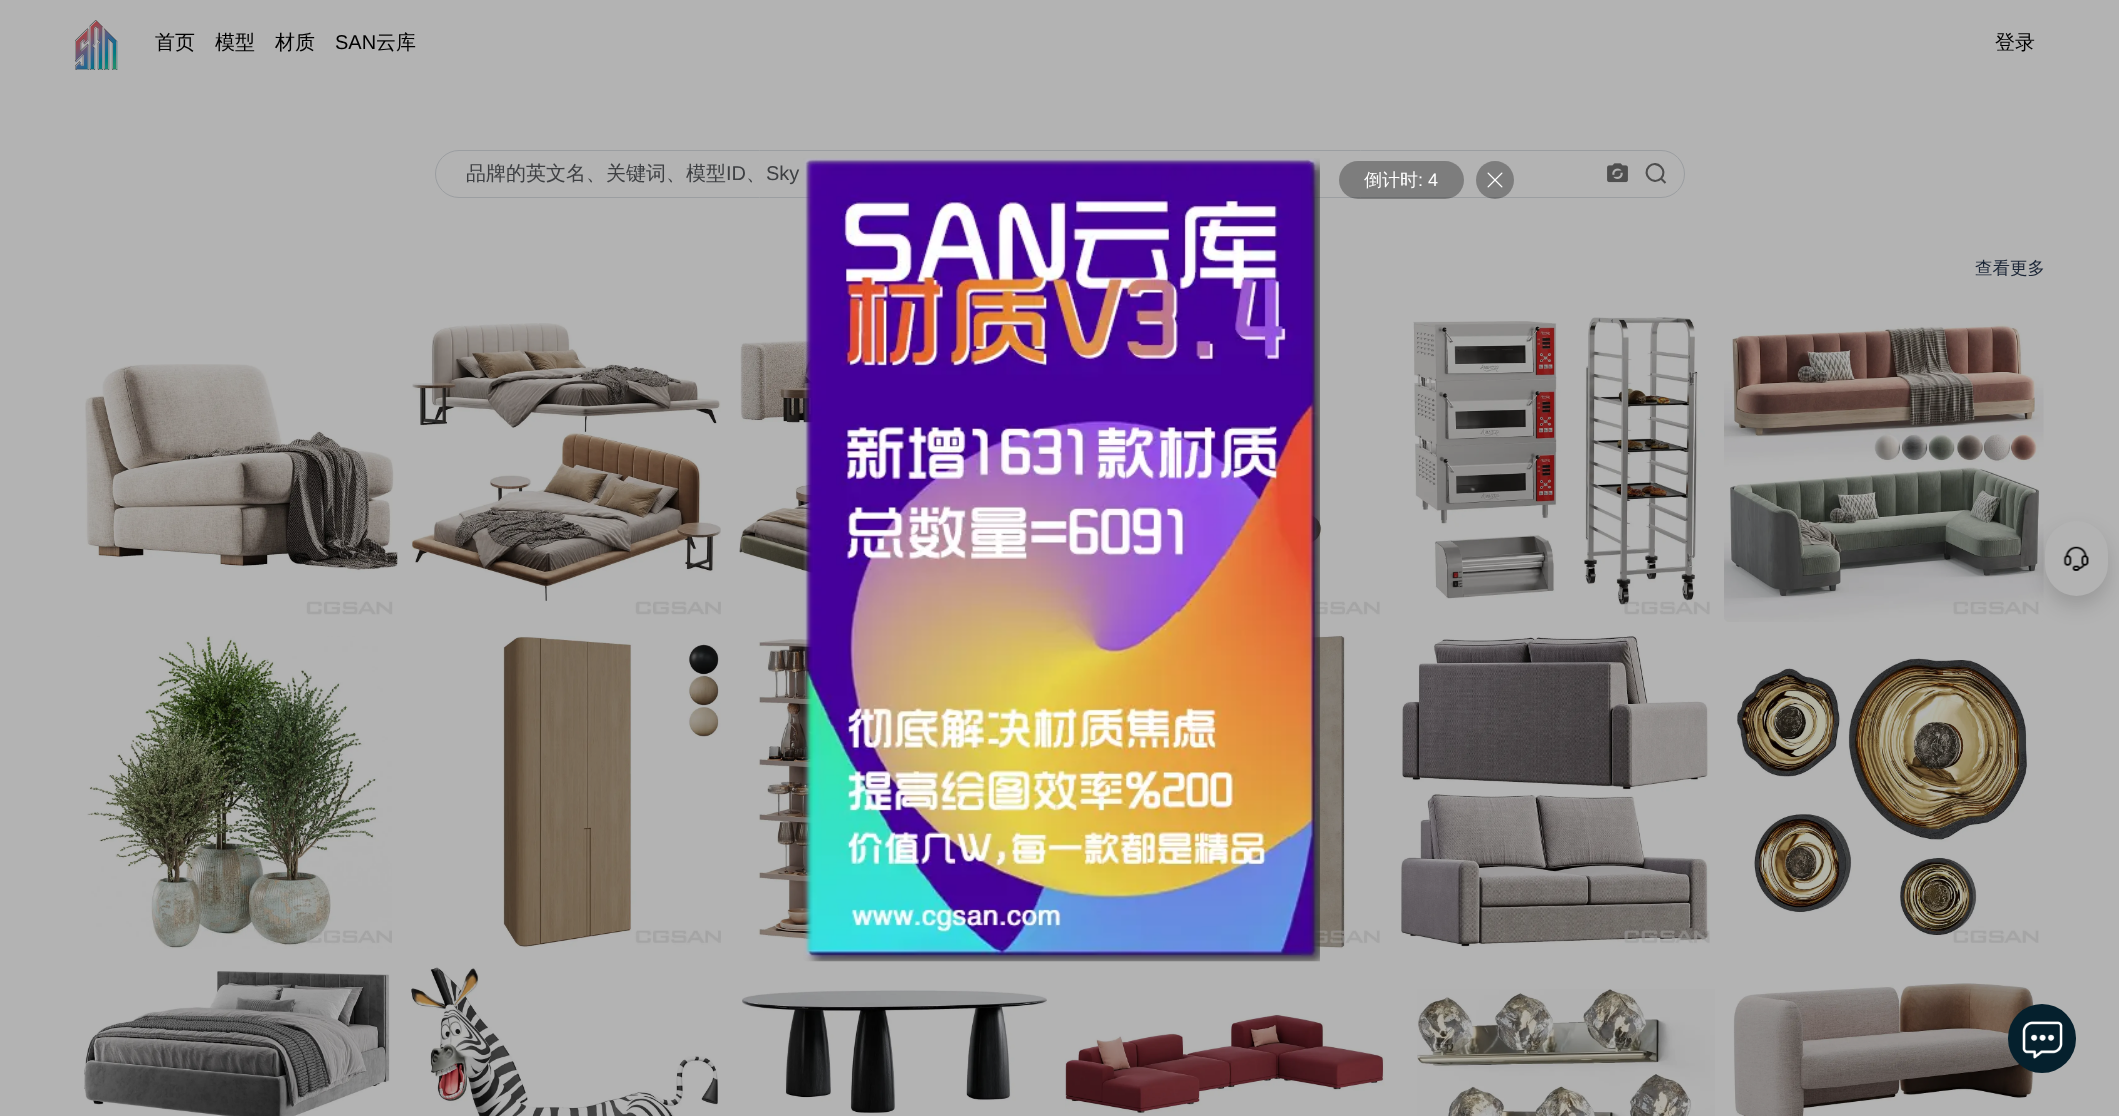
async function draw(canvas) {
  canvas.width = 2119
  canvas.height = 1116
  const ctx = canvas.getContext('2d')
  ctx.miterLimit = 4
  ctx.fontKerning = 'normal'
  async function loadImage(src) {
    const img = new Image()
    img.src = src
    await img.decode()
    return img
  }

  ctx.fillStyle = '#b3b3b3'
  ctx.fillRect(0, 0, 2119, 1116)
  ctx.drawImage(await loadImage('image0.png'), 75, 20, 43, 50)
  ctx.font = '500 20px WenQuanYi Zen Hei'
  ctx.fillStyle = '#000'
  ctx.fillText('首页', 155, 49)
  ctx.fillText('模型', 215, 49)
  ctx.fillText('材质', 275, 49)
  ctx.font = '20px Liberation Sans'
  ctx.fillText('SAN', 335, 49)
  ctx.font = '500 20px WenQuanYi Zen Hei'
  ctx.fillText('云库', 376, 49)
  ctx.fillText('登录', 1995, 49)
  ctx.beginPath()
  ctx.roundRect(435.5, 150.5, 1249, 47, 23.5)
  ctx.strokeStyle = '#9b9ea1'
  ctx.stroke()
  ctx.fillStyle = '#3e4043'
  ctx.fillText('品牌的英文名、关键词、模型', 466, 180)
  ctx.font = '20px Liberation Sans'
  ctx.fillText('ID', 726, 180)
  ctx.fillText('Sky', 766, 180)
  ctx.font = '500 20px WenQuanYi Zen Hei'
  ctx.fillText('、', 746, 180)
  ctx.drawImage(await loadImage('image1.png'), 1607, 163, 21, 20)
  ctx.beginPath()
  ctx.moveTo(1661, 178.5)
  ctx.bezierCurveTo(1668.5, 170.5, 1657, 159, 1649, 166.5)
  ctx.bezierCurveTo(1641.5, 174.5, 1653, 186, 1661, 178.5)
  ctx.closePath()
  ctx.moveTo(1661, 178.5)
  ctx.lineTo(1665.5, 183)
  ctx.strokeStyle = '#4e4e4e'
  ctx.lineWidth = 2.1
  ctx.stroke()
  ctx.drawImage(await loadImage('image6.png'), 739, 334, 74, 281)
  ctx.drawImage(await loadImage('image7.png'), 1309, 305, 71, 312)
  ctx.drawImage(await loadImage('image12.png'), 758, 639, 55, 306)
  ctx.drawImage(await loadImage('image13.png'), 1309, 635, 71, 314)
  ctx.drawImage(await loadImage('image2.png'), 803, 158, 517, 804)
  ctx.fillStyle = '#0000004d'
  ctx.beginPath()
  ctx.roundRect(1339, 161, 125, 38, 19)
  ctx.fill()
  ctx.font = '500 18px WenQuanYi Zen Hei'
  ctx.fillStyle = '#fff'
  ctx.fillText('倒计时', 1364, 186)
  ctx.font = '18px Liberation Sans'
  ctx.fillText(': 4', 1418, 186)
  ctx.fillStyle = '#0000004d'
  ctx.beginPath()
  ctx.arc(1495, 180, 19, 0, 2 * Math.PI)
  ctx.fill()
  ctx.drawImage(await loadImage('image3.png'), 1487, 172, 16, 16)
  ctx.font = '500 17.5px WenQuanYi Zen Hei'
  ctx.fillStyle = '#1b2637'
  ctx.fillText('查看更多', 1975, 274)
  ctx.drawImage(await loadImage('image4.png'), 85, 364, 313, 251)
  ctx.drawImage(await loadImage('image5.png'), 411, 323, 310, 292)
  ctx.drawImage(await loadImage('image8.png'), 1413, 317, 297, 298)
  ctx.drawImage(await loadImage('image9.png'), 1724, 324, 320, 298)
  ctx.drawImage(await loadImage('image10.png'), 87, 636, 305, 313)
  ctx.drawImage(await loadImage('image11.png'), 503, 636, 218, 312)
  ctx.drawImage(await loadImage('image14.png'), 1401, 636, 309, 311)
  ctx.drawImage(await loadImage('image15.png'), 1737, 658, 302, 285)
  ctx.drawImage(await loadImage('image16.png'), 84, 971, 306, 145)
  ctx.drawImage(await loadImage('image17.png'), 411, 967, 307, 149)
  ctx.drawImage(await loadImage('image18.png'), 742, 990, 305, 123)
  ctx.drawImage(await loadImage('image19.png'), 1065, 1014, 320, 99)
  ctx.drawImage(await loadImage('image20.png'), 1417, 989, 298, 127)
  ctx.drawImage(await loadImage('image21.png'), 1733, 983, 302, 133)
  ctx.fillStyle = '#00000026'
  ctx.filter = 'blur(10px)'
  ctx.beginPath()
  ctx.roundRect(2045, 531, 63, 75, 31.5)
  ctx.fill()
  ctx.filter = 'none'
  ctx.fillStyle = '#b3b3b3'
  ctx.beginPath()
  ctx.roundRect(2045, 521, 63, 75, 31.5)
  ctx.fill()
  ctx.drawImage(await loadImage('image22.png'), 2063, 546, 26, 25)
  ctx.fillStyle = '#05202d'
  ctx.beginPath()
  ctx.roundRect(2008, 1004, 68, 69, 34)
  ctx.fill()
  ctx.drawImage(await loadImage('image23.png'), 2022, 1021, 41, 38)
}

draw(document.querySelector('canvas'))
